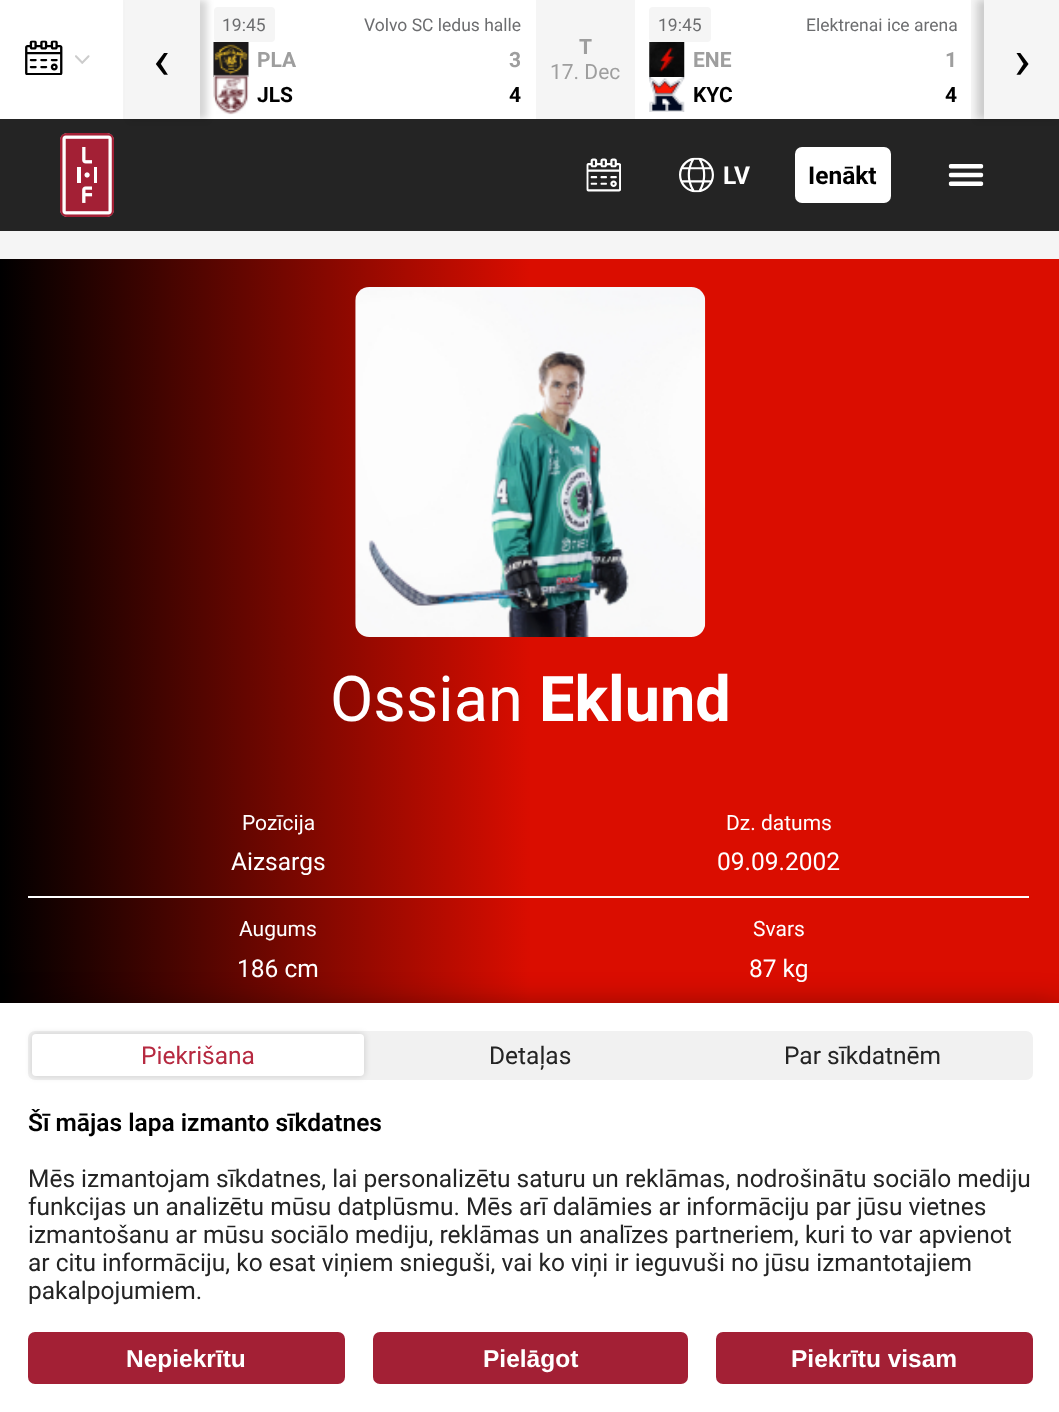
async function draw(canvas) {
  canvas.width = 1059
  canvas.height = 1412
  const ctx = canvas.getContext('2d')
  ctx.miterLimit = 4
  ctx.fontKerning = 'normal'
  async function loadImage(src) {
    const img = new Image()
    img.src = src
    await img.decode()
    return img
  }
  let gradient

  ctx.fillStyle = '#f5f5f5'
  ctx.fillRect(0, 0, 1059, 1412)
  ctx.fillStyle = '#fff'
  ctx.fillRect(0, 0, 123, 119)
  ctx.drawImage(await loadImage('image0.png'), 25, 40, 38, 35)
  ctx.drawImage(await loadImage('image1.png'), 75, 55, 15, 9)
  ctx.fillRect(200, 0, 336, 119)
  ctx.fillStyle = '#f5f5f5'
  ctx.beginPath()
  ctx.roundRect(214, 7, 61, 35, 4)
  ctx.fill()
  ctx.font = '17.5px Roboto'
  ctx.fillStyle = '#6c6d6f'
  ctx.fillText('19:45', 222, 31)
  ctx.fillText('Volvo SC ledus halle', 364, 31)
  ctx.drawImage(await loadImage('image2.png'), 213, 42, 36, 35)
  ctx.font = 'bold 21px Roboto'
  ctx.fillStyle = '#9e9e9e'
  ctx.fillText('PLA', 257, 67)
  ctx.fillText('3', 509, 67)
  ctx.drawImage(await loadImage('image3.png'), 213, 74, 36, 41)
  ctx.fillStyle = '#000'
  ctx.fillText('JLS', 257, 102)
  ctx.fillText('4', 509, 102)
  ctx.fillStyle = '#9e9e9e'
  ctx.fillText('T', 579, 54)
  ctx.font = '21px Roboto'
  ctx.fillText('17. Dec', 550, 79)
  ctx.fillStyle = '#fff'
  ctx.fillRect(635, 0, 336, 119)
  ctx.fillStyle = '#f5f5f5'
  ctx.beginPath()
  ctx.roundRect(649, 7, 62, 35, 4)
  ctx.fill()
  ctx.font = '17.5px Roboto'
  ctx.fillStyle = '#6c6d6f'
  ctx.fillText('19:45', 658, 31)
  ctx.fillText('Elektrenai ice arena', 806, 31)
  ctx.drawImage(await loadImage('image4.png'), 649, 42, 36, 35)
  ctx.font = 'bold 21px Roboto'
  ctx.fillStyle = '#9e9e9e'
  ctx.fillText('ENE', 693, 67)
  ctx.fillText('1', 945, 67)
  ctx.drawImage(await loadImage('image5.png'), 649, 77, 36, 35)
  ctx.fillStyle = '#000'
  ctx.fillText('KYC', 693, 102)
  ctx.fillText('4', 945, 102)
  ctx.fillStyle = '#242424'
  ctx.fillRect(0, 119, 1059, 112)
  ctx.fillStyle = '#00000029'
  ctx.filter = 'blur(3.5px)'
  ctx.beginPath()
  ctx.rect(130, 0, 77, 119)
  ctx.fill()
  ctx.filter = 'none'
  ctx.fillStyle = '#f5f5f5'
  ctx.fillRect(125, 0, 75, 119)
  ctx.font = '56px Roboto'
  ctx.fillStyle = '#000'
  ctx.fillText('‹', 153, 79)
  ctx.save()
  ctx.beginPath()
  ctx.moveTo(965, 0)
  ctx.lineTo(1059, 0)
  ctx.lineTo(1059, 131)
  ctx.lineTo(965, 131)
  ctx.closePath()
  ctx.moveTo(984, 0)
  ctx.lineTo(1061, 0)
  ctx.lineTo(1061, 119)
  ctx.lineTo(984, 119)
  ctx.closePath()
  ctx.clip('evenodd')
  ctx.fillStyle = '#00000029'
  ctx.filter = 'blur(3.5px)'
  ctx.beginPath()
  ctx.rect(977, 0, 77, 119)
  ctx.fill()
  ctx.filter = 'none'
  ctx.restore()
  ctx.fillText('›', 1014, 79)
  ctx.drawImage(await loadImage('image6.png'), 60, 133, 54, 84)
  ctx.drawImage(await loadImage('image7.png'), 586, 158, 35, 34)
  ctx.drawImage(await loadImage('image8.png'), 679, 157, 35, 36)
  ctx.font = 'bold 24.5px Roboto'
  ctx.fillStyle = '#fff'
  ctx.fillText('LV', 723, 184)
  ctx.beginPath()
  ctx.roundRect(795, 147, 96, 56, 7)
  ctx.fill()
  ctx.fillStyle = '#000'
  ctx.fillText('Ienākt', 808, 184)
  ctx.drawImage(await loadImage('image9.png'), 948, 164, 36, 22)
  gradient = ctx.createLinearGradient(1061, 759, 0, 760)
  gradient.addColorStop(0.5, '#da0d00')
  gradient.addColorStop(1, '#000')
  ctx.fillStyle = gradient
  ctx.fillRect(0, 259, 1059, 744)
  ctx.drawImage(await loadImage('image10.png'), 355, 287, 351, 350)
  ctx.font = '63px Roboto'
  ctx.fillStyle = '#fff'
  ctx.fillText('Ossian', 330, 721)
  ctx.font = 'bold 63px Roboto'
  ctx.fillText('Eklund', 539, 721)
  ctx.fillRect(28, 896, 1001, 2)
  ctx.font = '21px Roboto'
  ctx.fillText('Pozīcija', 242, 830)
  ctx.font = '24.5px Roboto'
  ctx.fillText('Aizsargs', 231, 870)
  ctx.font = '21px Roboto'
  ctx.fillText('Dz. datums', 726, 830)
  ctx.font = '24.5px Roboto'
  ctx.fillText('09.09.2002', 717, 870)
  ctx.font = '21px Roboto'
  ctx.fillText('Augums', 239, 936)
  ctx.font = '24.5px Roboto'
  ctx.fillText('186 cm', 237, 977)
  ctx.font = '21px Roboto'
  ctx.fillText('Svars', 753, 936)
  ctx.font = '24.5px Roboto'
  ctx.fillText('87 kg', 749, 977)
  ctx.fillStyle = '#00000052'
  ctx.filter = 'blur(14px)'
  ctx.beginPath()
  ctx.rect(0, 1003, 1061, 409)
  ctx.fill()
  ctx.filter = 'none'
  ctx.fillStyle = '#fff'
  ctx.fillRect(0, 1003, 1059, 409)
  ctx.fillStyle = '#f1f1f1'
  ctx.beginPath()
  ctx.roundRect(28, 1031, 1005, 49, 7)
  ctx.fill()
  ctx.fillStyle = '#00000029'
  ctx.filter = 'blur(3.5px)'
  ctx.beginPath()
  ctx.roundRect(32, 1034, 332, 42, 4)
  ctx.fill()
  ctx.filter = 'none'
  ctx.fillStyle = '#fff'
  ctx.beginPath()
  ctx.roundRect(32, 1034, 332, 42, 4)
  ctx.fill()
  ctx.fillStyle = '#b62940'
  ctx.fillText('Piekrišana', 141, 1064)
  ctx.fillStyle = '#242424'
  ctx.fillText('Detaļas', 489, 1064)
  ctx.fillText('Par sīkdatnēm', 784, 1064)
  ctx.font = '600 24.5px Roboto'
  ctx.fillStyle = '#000'
  ctx.fillText('Šī mājas lapa izmanto sīkdatnes', 28, 1131)
  ctx.font = '24.5px Roboto'
  ctx.fillStyle = '#242424'
  ctx.fillText('Mēs izmantojam sīkdatnes, lai personalizētu saturu un reklāmas, nodrošinātu sociālo mediju', 28, 1187)
  ctx.fillText('funkcijas un analizētu mūsu datplūsmu. Mēs arī dalāmies ar informāciju par jūsu vietnes', 28, 1215)
  ctx.fillText('izmantošanu ar mūsu sociālo mediju, reklāmas un analīzes partneriem, kuri to var apvienot', 28, 1243)
  ctx.fillText('ar citu informāciju, ko esat viņiem snieguši, vai ko viņi ir ieguvuši no jūsu izmantotajiem', 28, 1271)
  ctx.fillText('pakalpojumiem.', 28, 1299)
  ctx.fillStyle = '#a32035'
  ctx.beginPath()
  ctx.roundRect(29, 1333, 315, 50, 6)
  ctx.fill()
  ctx.strokeStyle = '#a32035'
  ctx.lineWidth = 2
  ctx.stroke()
  ctx.font = 'bold 24.5px Liberation Sans'
  ctx.fillStyle = '#fff'
  ctx.fillText('Nepiekrītu', 126, 1367)
  ctx.fillStyle = '#a32035'
  ctx.beginPath()
  ctx.roundRect(374, 1333, 313, 50, 6)
  ctx.fill()
  ctx.stroke()
  ctx.fillStyle = '#fff'
  ctx.fillText('Pielāgot', 483, 1367)
  ctx.fillStyle = '#a32035'
  ctx.beginPath()
  ctx.roundRect(717, 1333, 315, 50, 6)
  ctx.fill()
  ctx.stroke()
  ctx.fillStyle = '#fff'
  ctx.fillText('Piekrītu visam', 791, 1367)
}

draw(document.querySelector('canvas'))
